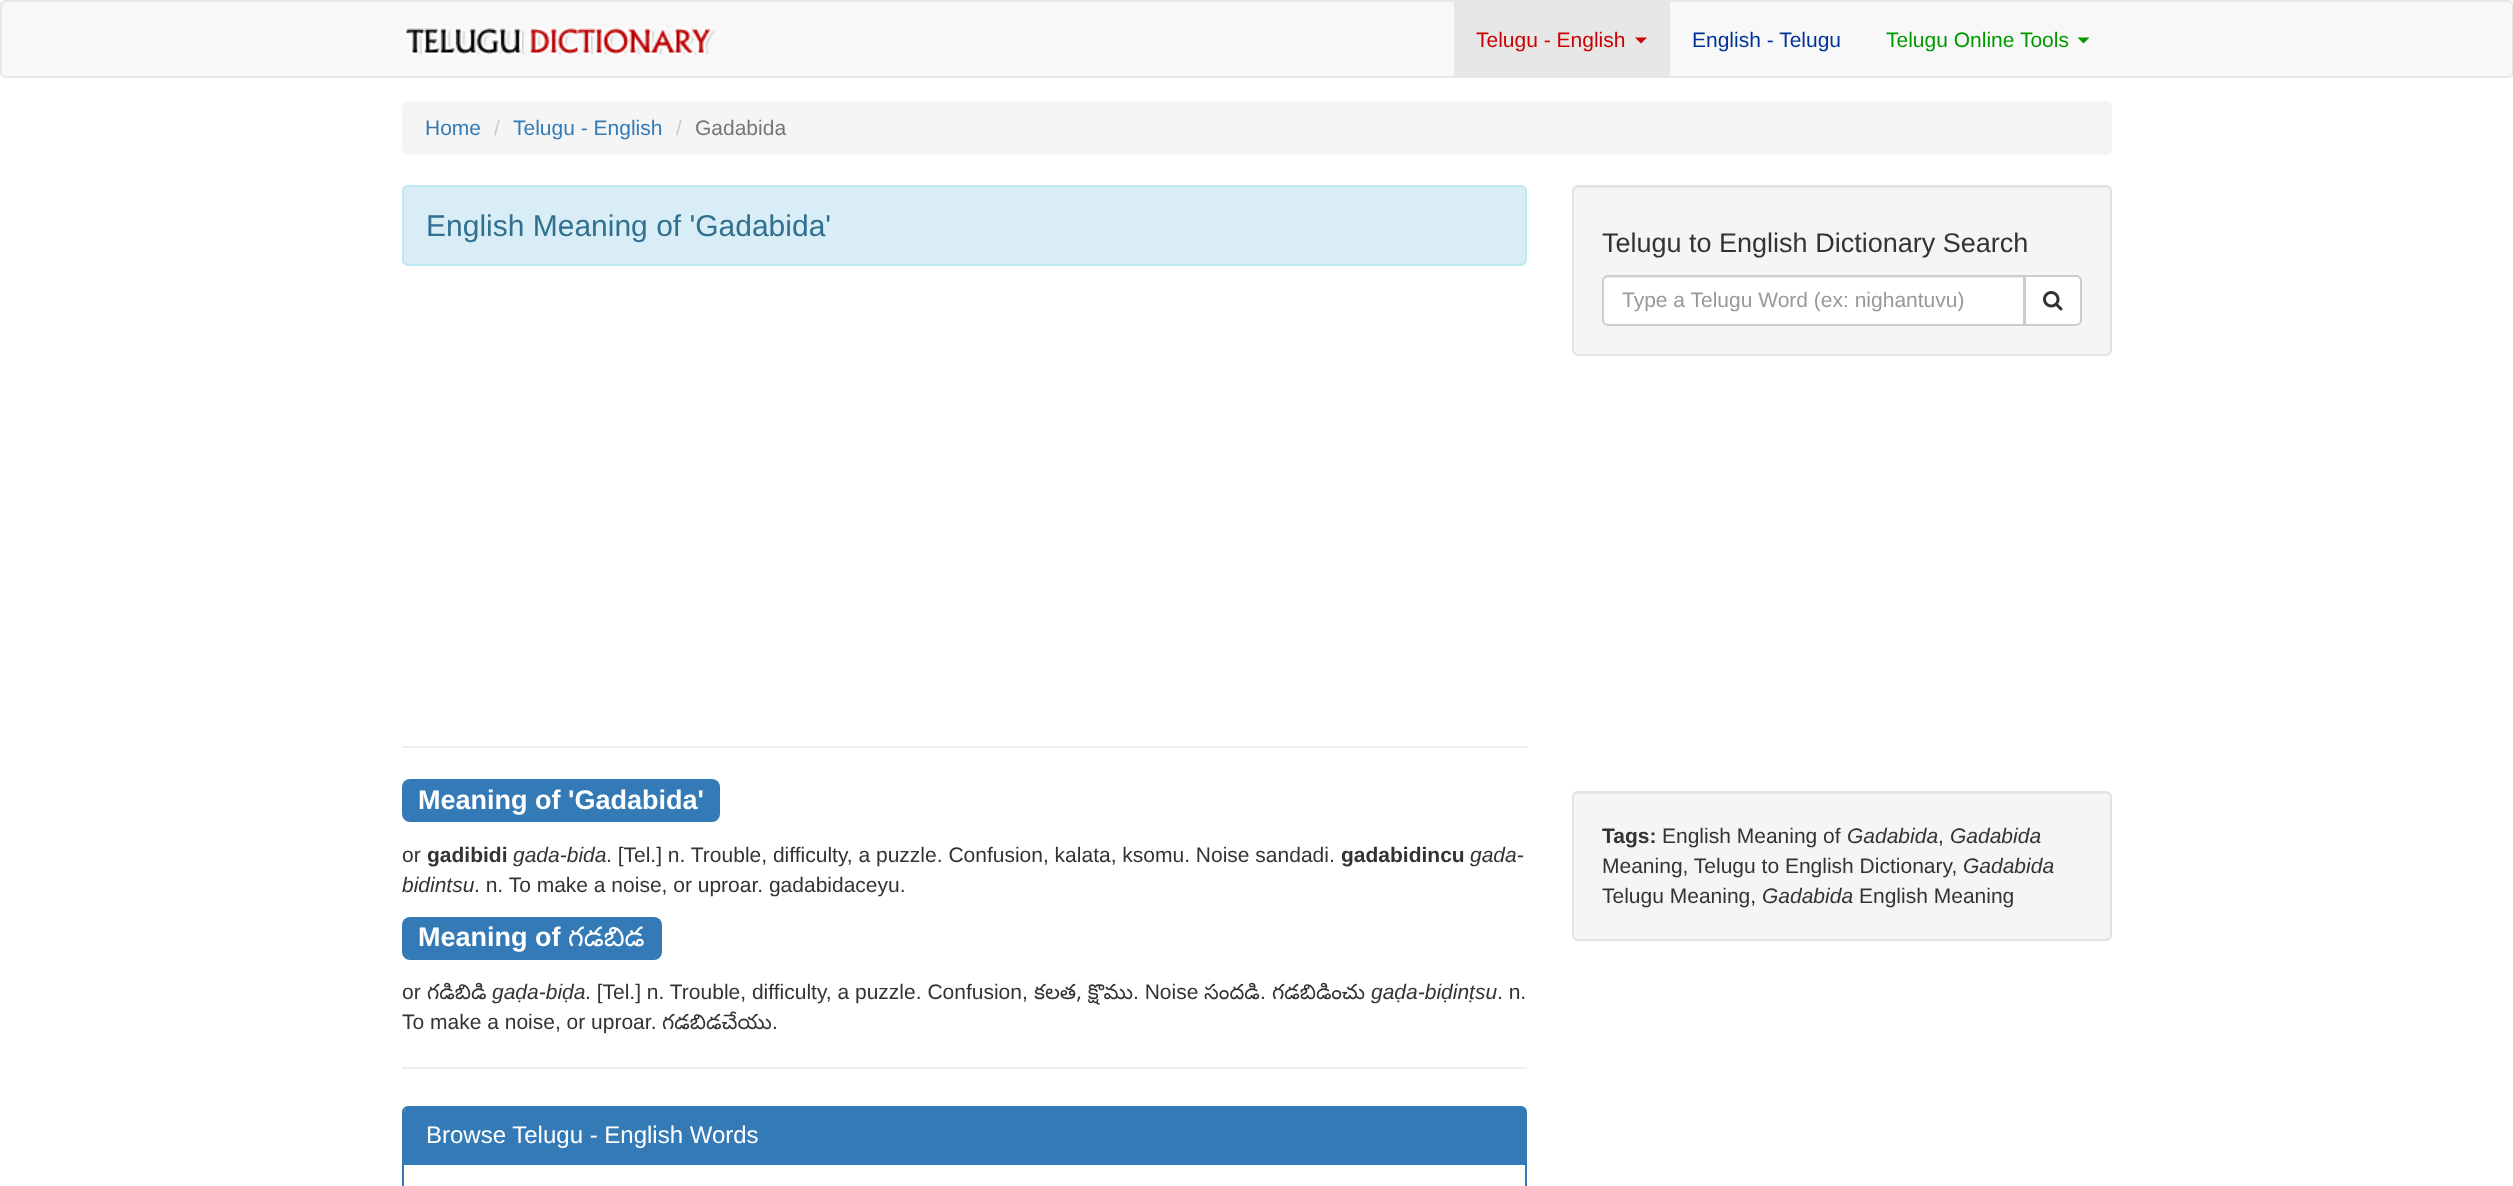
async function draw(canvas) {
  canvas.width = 2513
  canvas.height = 1186
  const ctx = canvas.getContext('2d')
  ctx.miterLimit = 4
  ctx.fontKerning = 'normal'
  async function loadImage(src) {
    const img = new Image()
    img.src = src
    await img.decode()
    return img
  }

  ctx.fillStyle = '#fff'
  ctx.fillRect(0, 0, 2513, 1186)
  ctx.fillStyle = '#f8f8f8'
  ctx.beginPath()
  ctx.roundRect(1, 1, 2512, 76, 5)
  ctx.fill()
  ctx.strokeStyle = '#e7e7e7'
  ctx.lineWidth = 2
  ctx.stroke()
  ctx.drawImage(await loadImage('image0.png'), 404, 27, 311, 29)
  ctx.fillStyle = '#e7e7e7'
  ctx.fillRect(1454, 2, 216, 74)
  ctx.font = '21px Liberation Sans'
  ctx.fillStyle = '#c00'
  ctx.fillText('Telugu - English', 1476, 47)
  ctx.beginPath()
  ctx.moveTo(1635, 37.5)
  ctx.lineTo(1647, 37.5)
  ctx.lineTo(1641, 43.5)
  ctx.closePath()
  ctx.fill()
  ctx.fillStyle = '#039'
  ctx.fillText('English - Telugu', 1692, 47)
  ctx.fillStyle = '#090'
  ctx.fillText('Telugu Online Tools', 1886, 47)
  ctx.beginPath()
  ctx.moveTo(2077.5, 37.5)
  ctx.lineTo(2089.5, 37.5)
  ctx.lineTo(2083.5, 43.5)
  ctx.closePath()
  ctx.fill()
  ctx.fillStyle = '#f5f5f5'
  ctx.beginPath()
  ctx.roundRect(402, 101, 1710, 54, 6)
  ctx.fill()
  ctx.fillStyle = '#337ab7'
  ctx.fillText('Home', 425, 135)
  ctx.fillStyle = '#ccc'
  ctx.fillText('/', 494, 135)
  ctx.fillStyle = '#337ab7'
  ctx.fillText('Telugu - English', 513, 135)
  ctx.fillStyle = '#ccc'
  ctx.fillText('/', 676, 135)
  ctx.fillStyle = '#777'
  ctx.fillText('Gadabida', 695, 135)
  ctx.fillStyle = '#d9edf7'
  ctx.beginPath()
  ctx.roundRect(403, 186, 1123, 79, 5)
  ctx.fill()
  ctx.strokeStyle = '#bce8f1'
  ctx.stroke()
  ctx.font = '30px Liberation Sans'
  ctx.fillStyle = '#31708f'
  ctx.fillText('English Meaning of \'Gadabida\'', 426, 236)
  ctx.fillStyle = '#eee'
  ctx.fillRect(402, 746, 1125, 2)
  ctx.fillStyle = '#337ab7'
  ctx.beginPath()
  ctx.roundRect(402, 779, 167, 43, [8, 0, 0, 8])
  ctx.fill()
  ctx.beginPath()
  ctx.roundRect(569, 779, 151, 43, [0, 8, 8, 0])
  ctx.fill()
  ctx.font = 'bold 27px Liberation Sans'
  ctx.fillStyle = '#fff'
  ctx.fillText('Meaning of \'Gadabida\'', 418, 809)
  ctx.font = '21px Liberation Sans'
  ctx.fillStyle = '#333'
  ctx.fillText('or', 402, 862)
  ctx.font = 'bold 21px Liberation Sans'
  ctx.fillText('gadibidi', 427, 862)
  ctx.font = 'italic 21px Liberation Sans'
  ctx.fillText('gada-bida', 513, 862)
  ctx.font = '21px Liberation Sans'
  ctx.fillText('. [Tel.] n. Trouble, difficulty, a puzzle. Confusion, kalata, ksomu. Noise sandadi.', 606, 862)
  ctx.font = 'bold 21px Liberation Sans'
  ctx.fillText('gadabidincu', 1341, 862)
  ctx.font = 'italic 21px Liberation Sans'
  ctx.fillText('gada-', 1470, 862)
  ctx.fillText('bidintsu', 402, 892)
  ctx.font = '21px Liberation Sans'
  ctx.fillText('. n. To make a noise, or uproar. gadabidaceyu.', 474, 892)
  ctx.fillStyle = '#337ab7'
  ctx.beginPath()
  ctx.roundRect(402, 917, 260, 43, 8)
  ctx.fill()
  ctx.font = 'bold 27px Liberation Sans'
  ctx.fillStyle = '#fff'
  ctx.fillText('Meaning of', 418, 946)
  ctx.font = '27px Noto Sans Telugu'
  ctx.fillText('గడబిడ', 568, 946)
  ctx.font = '21px Liberation Sans'
  ctx.fillStyle = '#333'
  ctx.fillText('or', 402, 999)
  ctx.font = '21px Noto Sans Telugu'
  ctx.fillText('గడిబిడి', 427, 999)
  ctx.font = 'italic 21px Liberation Sans'
  ctx.fillText('gaḍa-biḍa', 492, 999)
  ctx.font = '21px Liberation Sans'
  ctx.fillText('. [Tel.] n. Trouble, difficulty, a puzzle. Confusion,', 585, 999)
  ctx.font = '21px Noto Sans Telugu'
  ctx.fillText('కలత, క్షొము', 1034, 999)
  ctx.font = '21px Liberation Sans'
  ctx.fillText('. Noise', 1133, 999)
  ctx.font = '21px Noto Sans Telugu'
  ctx.fillText('సందడి', 1204, 999)
  ctx.font = '21px Liberation Sans'
  ctx.fillText('.', 1260, 999)
  ctx.font = '21px Noto Sans Telugu'
  ctx.fillText('గడబిడించు', 1272, 999)
  ctx.font = 'italic 21px Liberation Sans'
  ctx.fillText('gaḍa-biḍinṭsu', 1371, 999)
  ctx.font = '21px Liberation Sans'
  ctx.fillText('. n.', 1497, 999)
  ctx.fillText('To make a noise, or uproar.', 402, 1029)
  ctx.font = '21px Noto Sans Telugu'
  ctx.fillText('గడబిడచేయు', 662, 1029)
  ctx.font = '21px Liberation Sans'
  ctx.fillText('.', 772, 1029)
  ctx.fillStyle = '#eee'
  ctx.fillRect(402, 1067, 1125, 2)
  ctx.beginPath()
  ctx.roundRect(403, 1107, 1123, 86, 5)
  ctx.strokeStyle = '#337ab7'
  ctx.stroke()
  ctx.fillStyle = '#337ab7'
  ctx.beginPath()
  ctx.roundRect(404, 1107, 1122, 57, [5, 5, 0, 0])
  ctx.fill()
  ctx.fillRect(404, 1164, 1122, 1)
  ctx.font = '24px Liberation Sans'
  ctx.fillStyle = '#fff'
  ctx.fillText('Browse Telugu - English Words', 426, 1143)
  ctx.fillStyle = '#f5f5f5'
  ctx.beginPath()
  ctx.roundRect(1572, 185, 540, 171, 6)
  ctx.fill()
  ctx.fillStyle = '#e9e9e9'
  ctx.beginPath()
  ctx.moveTo(1578, 188)
  ctx.lineTo(2106, 188)
  ctx.bezierCurveTo(2108, 188, 2110, 190, 2110, 192)
  ctx.lineTo(2110, 352)
  ctx.bezierCurveTo(2111, 351, 2111, 350, 2111, 349)
  ctx.lineTo(2111, 191)
  ctx.bezierCurveTo(2111, 188, 2109, 186, 2106, 186)
  ctx.lineTo(1579, 186)
  ctx.bezierCurveTo(1576, 186, 1574, 188, 1574, 191)
  ctx.lineTo(1574, 192)
  ctx.bezierCurveTo(1574, 190, 1576, 188, 1578, 188)
  ctx.closePath()
  ctx.fill()
  ctx.beginPath()
  ctx.roundRect(1573, 186, 538, 169, 5)
  ctx.strokeStyle = '#e3e3e3'
  ctx.stroke()
  ctx.font = '27px Liberation Sans'
  ctx.fillStyle = '#333'
  ctx.fillText('Telugu to English Dictionary Search', 1602, 252)
  ctx.fillStyle = '#fff'
  ctx.beginPath()
  ctx.roundRect(2025, 276, 56, 49, [0, 5, 5, 0])
  ctx.fill()
  ctx.strokeStyle = '#ccc'
  ctx.stroke()
  ctx.beginPath()
  ctx.roundRect(1602, 275, 423, 51, [6, 0, 0, 6])
  ctx.fill()
  ctx.fillStyle = '#ececec'
  ctx.beginPath()
  ctx.moveTo(1608, 278)
  ctx.lineTo(2024, 278)
  ctx.lineTo(2024, 276)
  ctx.lineTo(1609, 276)
  ctx.bezierCurveTo(1606, 276, 1604, 279, 1604, 282)
  ctx.bezierCurveTo(1604, 280, 1606, 278, 1608, 278)
  ctx.closePath()
  ctx.fill()
  ctx.beginPath()
  ctx.roundRect(1603, 276, 421, 49, [5, 0, 0, 5])
  ctx.stroke()
  ctx.font = '21px Liberation Sans'
  ctx.fillStyle = '#999'
  ctx.fillText('Type a Telugu Word (ex: nighantuvu)', 1622, 307)
  ctx.drawImage(await loadImage('image1.png'), 2043, 291, 20, 20)
  ctx.fillStyle = '#f5f5f5'
  ctx.beginPath()
  ctx.roundRect(1572, 791, 540, 150, 6)
  ctx.fill()
  ctx.fillStyle = '#e9e9e9'
  ctx.beginPath()
  ctx.moveTo(1578, 794)
  ctx.lineTo(2106, 794)
  ctx.bezierCurveTo(2108, 794, 2110, 796, 2110, 798)
  ctx.lineTo(2110, 937)
  ctx.bezierCurveTo(2111, 936, 2111, 935, 2111, 934)
  ctx.lineTo(2111, 797)
  ctx.bezierCurveTo(2111, 794, 2109, 792, 2106, 792)
  ctx.lineTo(1579, 792)
  ctx.bezierCurveTo(1576, 792, 1574, 794, 1574, 797)
  ctx.lineTo(1574, 798)
  ctx.bezierCurveTo(1574, 796, 1576, 794, 1578, 794)
  ctx.closePath()
  ctx.fill()
  ctx.beginPath()
  ctx.roundRect(1573, 792, 538, 148, 5)
  ctx.strokeStyle = '#e3e3e3'
  ctx.stroke()
  ctx.font = 'bold 21px Liberation Sans'
  ctx.fillStyle = '#333'
  ctx.fillText('Tags:', 1602, 843)
  ctx.font = '21px Liberation Sans'
  ctx.fillText('English Meaning of', 1662, 843)
  ctx.font = 'italic 21px Liberation Sans'
  ctx.fillText('Gadabida', 1847, 843)
  ctx.font = '21px Liberation Sans'
  ctx.fillText(',', 1938, 843)
  ctx.font = 'italic 21px Liberation Sans'
  ctx.fillText('Gadabida', 1950, 843)
  ctx.font = '21px Liberation Sans'
  ctx.fillText('Meaning, Telugu to English Dictionary,', 1602, 873)
  ctx.font = 'italic 21px Liberation Sans'
  ctx.fillText('Gadabida', 1963, 873)
  ctx.font = '21px Liberation Sans'
  ctx.fillText('Telugu Meaning,', 1602, 903)
  ctx.font = 'italic 21px Liberation Sans'
  ctx.fillText('Gadabida', 1762, 903)
  ctx.font = '21px Liberation Sans'
  ctx.fillText('English Meaning', 1859, 903)
}

draw(document.querySelector('canvas'))
